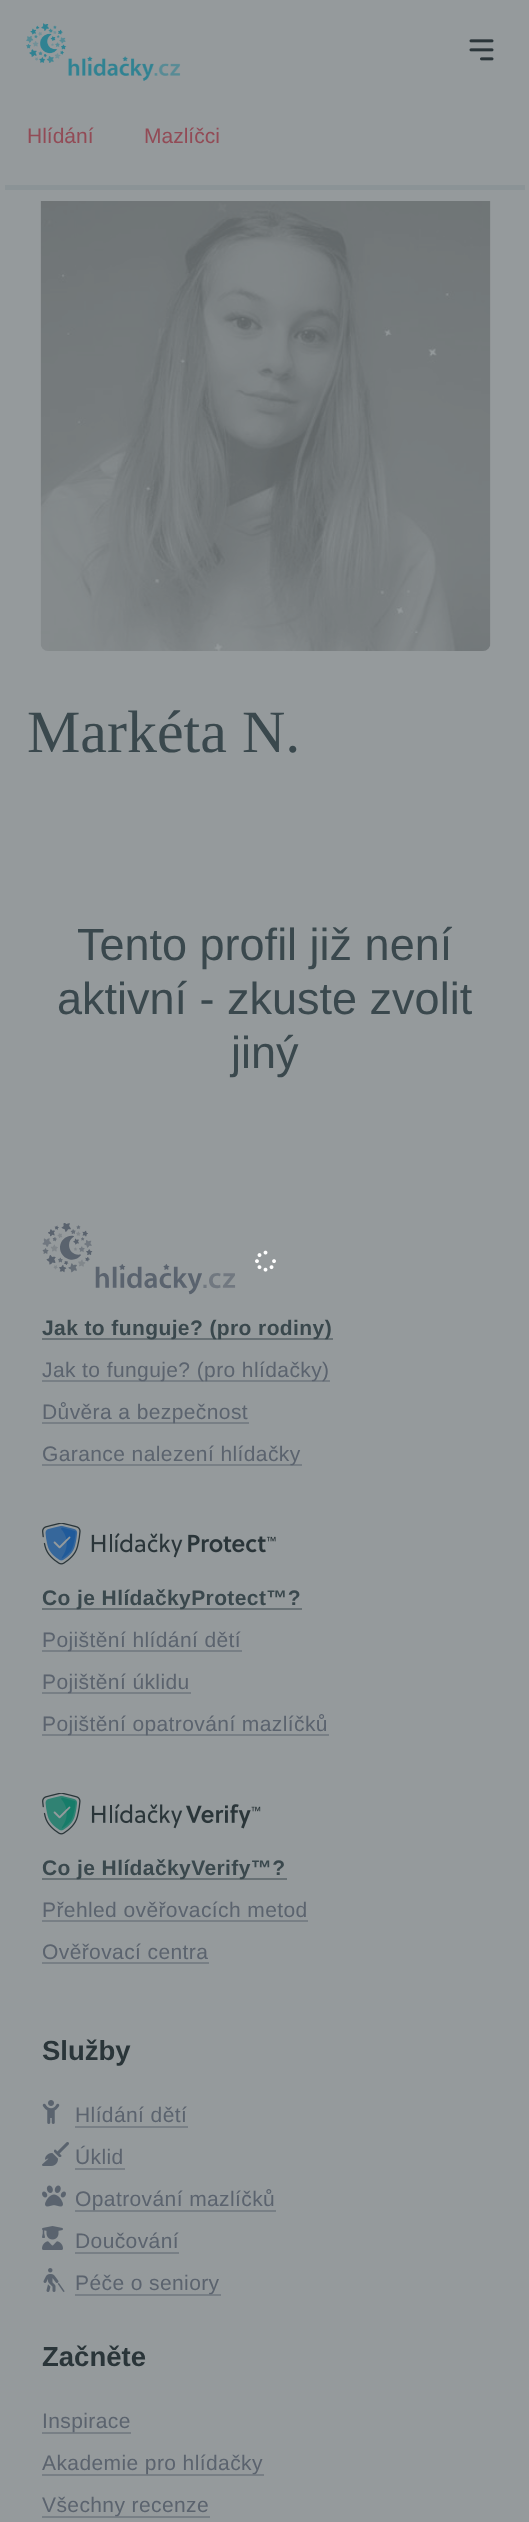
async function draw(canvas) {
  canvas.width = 529
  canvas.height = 2522
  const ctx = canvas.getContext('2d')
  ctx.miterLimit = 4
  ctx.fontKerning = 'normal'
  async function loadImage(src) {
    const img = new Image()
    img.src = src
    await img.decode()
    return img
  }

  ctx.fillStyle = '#959a9c'
  ctx.fillRect(0, 0, 529, 2522)
  ctx.drawImage(await loadImage('image0.png'), 26, 23, 155, 58)
  ctx.drawImage(await loadImage('image1.png'), 469, 39, 25, 22)
  ctx.fillStyle = '#8b9396'
  ctx.fillRect(5, 185, 520, 5)
  ctx.font = '21px Liberation Sans'
  ctx.fillStyle = '#924b56'
  ctx.fillText('Hlídání', 27, 143)
  ctx.fillText('Mazlíčci', 144, 143)
  ctx.drawImage(await loadImage('image2.png'), 40, 201, 451, 450)
  ctx.font = '60px Liberation Serif'
  ctx.fillStyle = '#3a484d'
  ctx.fillText('Markéta N.', 27, 752)
  ctx.font = '45px Liberation Sans'
  ctx.fillText('Tento profil již není', 77, 960)
  ctx.fillText('aktivní - zkuste zvolit', 57, 1014)
  ctx.fillText('jiný', 231, 1068)
  ctx.drawImage(await loadImage('image3.png'), 255, 1250, 21, 22)
  ctx.drawImage(await loadImage('image4.png'), 42, 1223, 194, 72)
  ctx.fillStyle = '#687175'
  ctx.fillRect(42, 1338, 291, 2)
  ctx.letterSpacing = '0.4px'
  ctx.font = 'bold 21px Liberation Sans'
  ctx.fillStyle = '#3a484d'
  ctx.fillText('Jak to funguje? (pro rodiny)', 42, 1335)
  ctx.fillStyle = '#787f85'
  ctx.fillRect(42, 1380, 288, 2)
  ctx.font = '21px Liberation Sans'
  ctx.fillStyle = '#5b636e'
  ctx.fillText('Jak to funguje? (pro hlídačky)', 42, 1377)
  ctx.fillStyle = '#787f85'
  ctx.fillRect(42, 1422, 207, 2)
  ctx.fillStyle = '#5b636e'
  ctx.fillText('Důvěra a bezpečnost', 42, 1419)
  ctx.fillStyle = '#787f85'
  ctx.fillRect(42, 1464, 260, 2)
  ctx.fillStyle = '#5b636e'
  ctx.fillText('Garance nalezení hlídačky', 42, 1461)
  ctx.drawImage(await loadImage('image5.png'), 42, 1523, 234, 42)
  ctx.fillStyle = '#687175'
  ctx.fillRect(42, 1608, 260, 2)
  ctx.font = 'bold 21px Liberation Sans'
  ctx.fillStyle = '#3a484d'
  ctx.fillText('Co je HlídačkyProtect™?', 42, 1605)
  ctx.fillStyle = '#787f85'
  ctx.fillRect(42, 1650, 200, 2)
  ctx.font = '21px Liberation Sans'
  ctx.fillStyle = '#5b636e'
  ctx.fillText('Pojištění hlídání dětí', 42, 1647)
  ctx.fillStyle = '#787f85'
  ctx.fillRect(42, 1692, 149, 2)
  ctx.fillStyle = '#5b636e'
  ctx.fillText('Pojištění úklidu', 42, 1689)
  ctx.fillStyle = '#787f85'
  ctx.fillRect(42, 1734, 287, 2)
  ctx.fillStyle = '#5b636e'
  ctx.fillText('Pojištění opatrování mazlíčků', 42, 1731)
  ctx.drawImage(await loadImage('image6.png'), 42, 1793, 219, 42)
  ctx.fillStyle = '#687175'
  ctx.fillRect(42, 1878, 245, 2)
  ctx.font = 'bold 21px Liberation Sans'
  ctx.fillStyle = '#3a484d'
  ctx.fillText('Co je HlídačkyVerify™?', 42, 1875)
  ctx.font = '21px Liberation Sans'
  ctx.fillStyle = '#5b636e'
  ctx.fillText('Přehled ověřovacích metod', 42, 1917)
  ctx.fillStyle = '#787f85'
  ctx.fillRect(42, 1920, 266, 2)
  ctx.fillStyle = '#5b636e'
  ctx.fillText('Ověřovací centra', 42, 1959)
  ctx.fillStyle = '#787f85'
  ctx.fillRect(42, 1962, 167, 2)
  ctx.letterSpacing = '0px'
  ctx.font = 'bold 27.5px Liberation Sans'
  ctx.fillStyle = '#2a3539'
  ctx.fillText('Služby', 42, 2060)
  ctx.drawImage(await loadImage('image7.png'), 42, 2100, 18, 24)
  ctx.letterSpacing = '0.4px'
  ctx.font = '21px Liberation Sans'
  ctx.fillStyle = '#5b636e'
  ctx.fillText('Hlídání dětí', 75, 2122)
  ctx.fillStyle = '#787f85'
  ctx.fillRect(75, 2126, 113, 2)
  ctx.drawImage(await loadImage('image8.png'), 42, 2142, 27, 24)
  ctx.fillStyle = '#5b636e'
  ctx.fillText('Úklid', 75, 2164)
  ctx.fillStyle = '#787f85'
  ctx.fillRect(75, 2168, 50, 2)
  ctx.drawImage(await loadImage('image9.png'), 42, 2185, 24, 22)
  ctx.fillRect(75, 2210, 201, 2)
  ctx.fillStyle = '#5b636e'
  ctx.fillText('Opatrování mazlíčků', 75, 2206)
  ctx.drawImage(await loadImage('image10.png'), 42, 2226, 21, 24)
  ctx.fillText('Doučování', 75, 2248)
  ctx.fillStyle = '#787f85'
  ctx.fillRect(75, 2252, 104, 2)
  ctx.drawImage(await loadImage('image11.png'), 43, 2268, 22, 24)
  ctx.fillRect(75, 2294, 146, 2)
  ctx.fillStyle = '#5b636e'
  ctx.fillText('Péče o seniory', 75, 2290)
  ctx.letterSpacing = '0px'
  ctx.font = 'bold 27.5px Liberation Sans'
  ctx.fillStyle = '#2a3539'
  ctx.fillText('Začněte', 42, 2366)
  ctx.fillStyle = '#787f85'
  ctx.fillRect(42, 2432, 89, 2)
  ctx.letterSpacing = '0.4px'
  ctx.font = '21px Liberation Sans'
  ctx.fillStyle = '#5b636e'
  ctx.fillText('Inspirace', 42, 2428)
  ctx.fillStyle = '#787f85'
  ctx.fillRect(42, 2474, 222, 2)
  ctx.fillStyle = '#5b636e'
  ctx.fillText('Akademie pro hlídačky', 42, 2470)
  ctx.fillStyle = '#787f85'
  ctx.fillRect(42, 2516, 168, 2)
  ctx.fillStyle = '#5b636e'
  ctx.fillText('Všechny recenze', 42, 2512)
}

draw(document.querySelector('canvas'))
